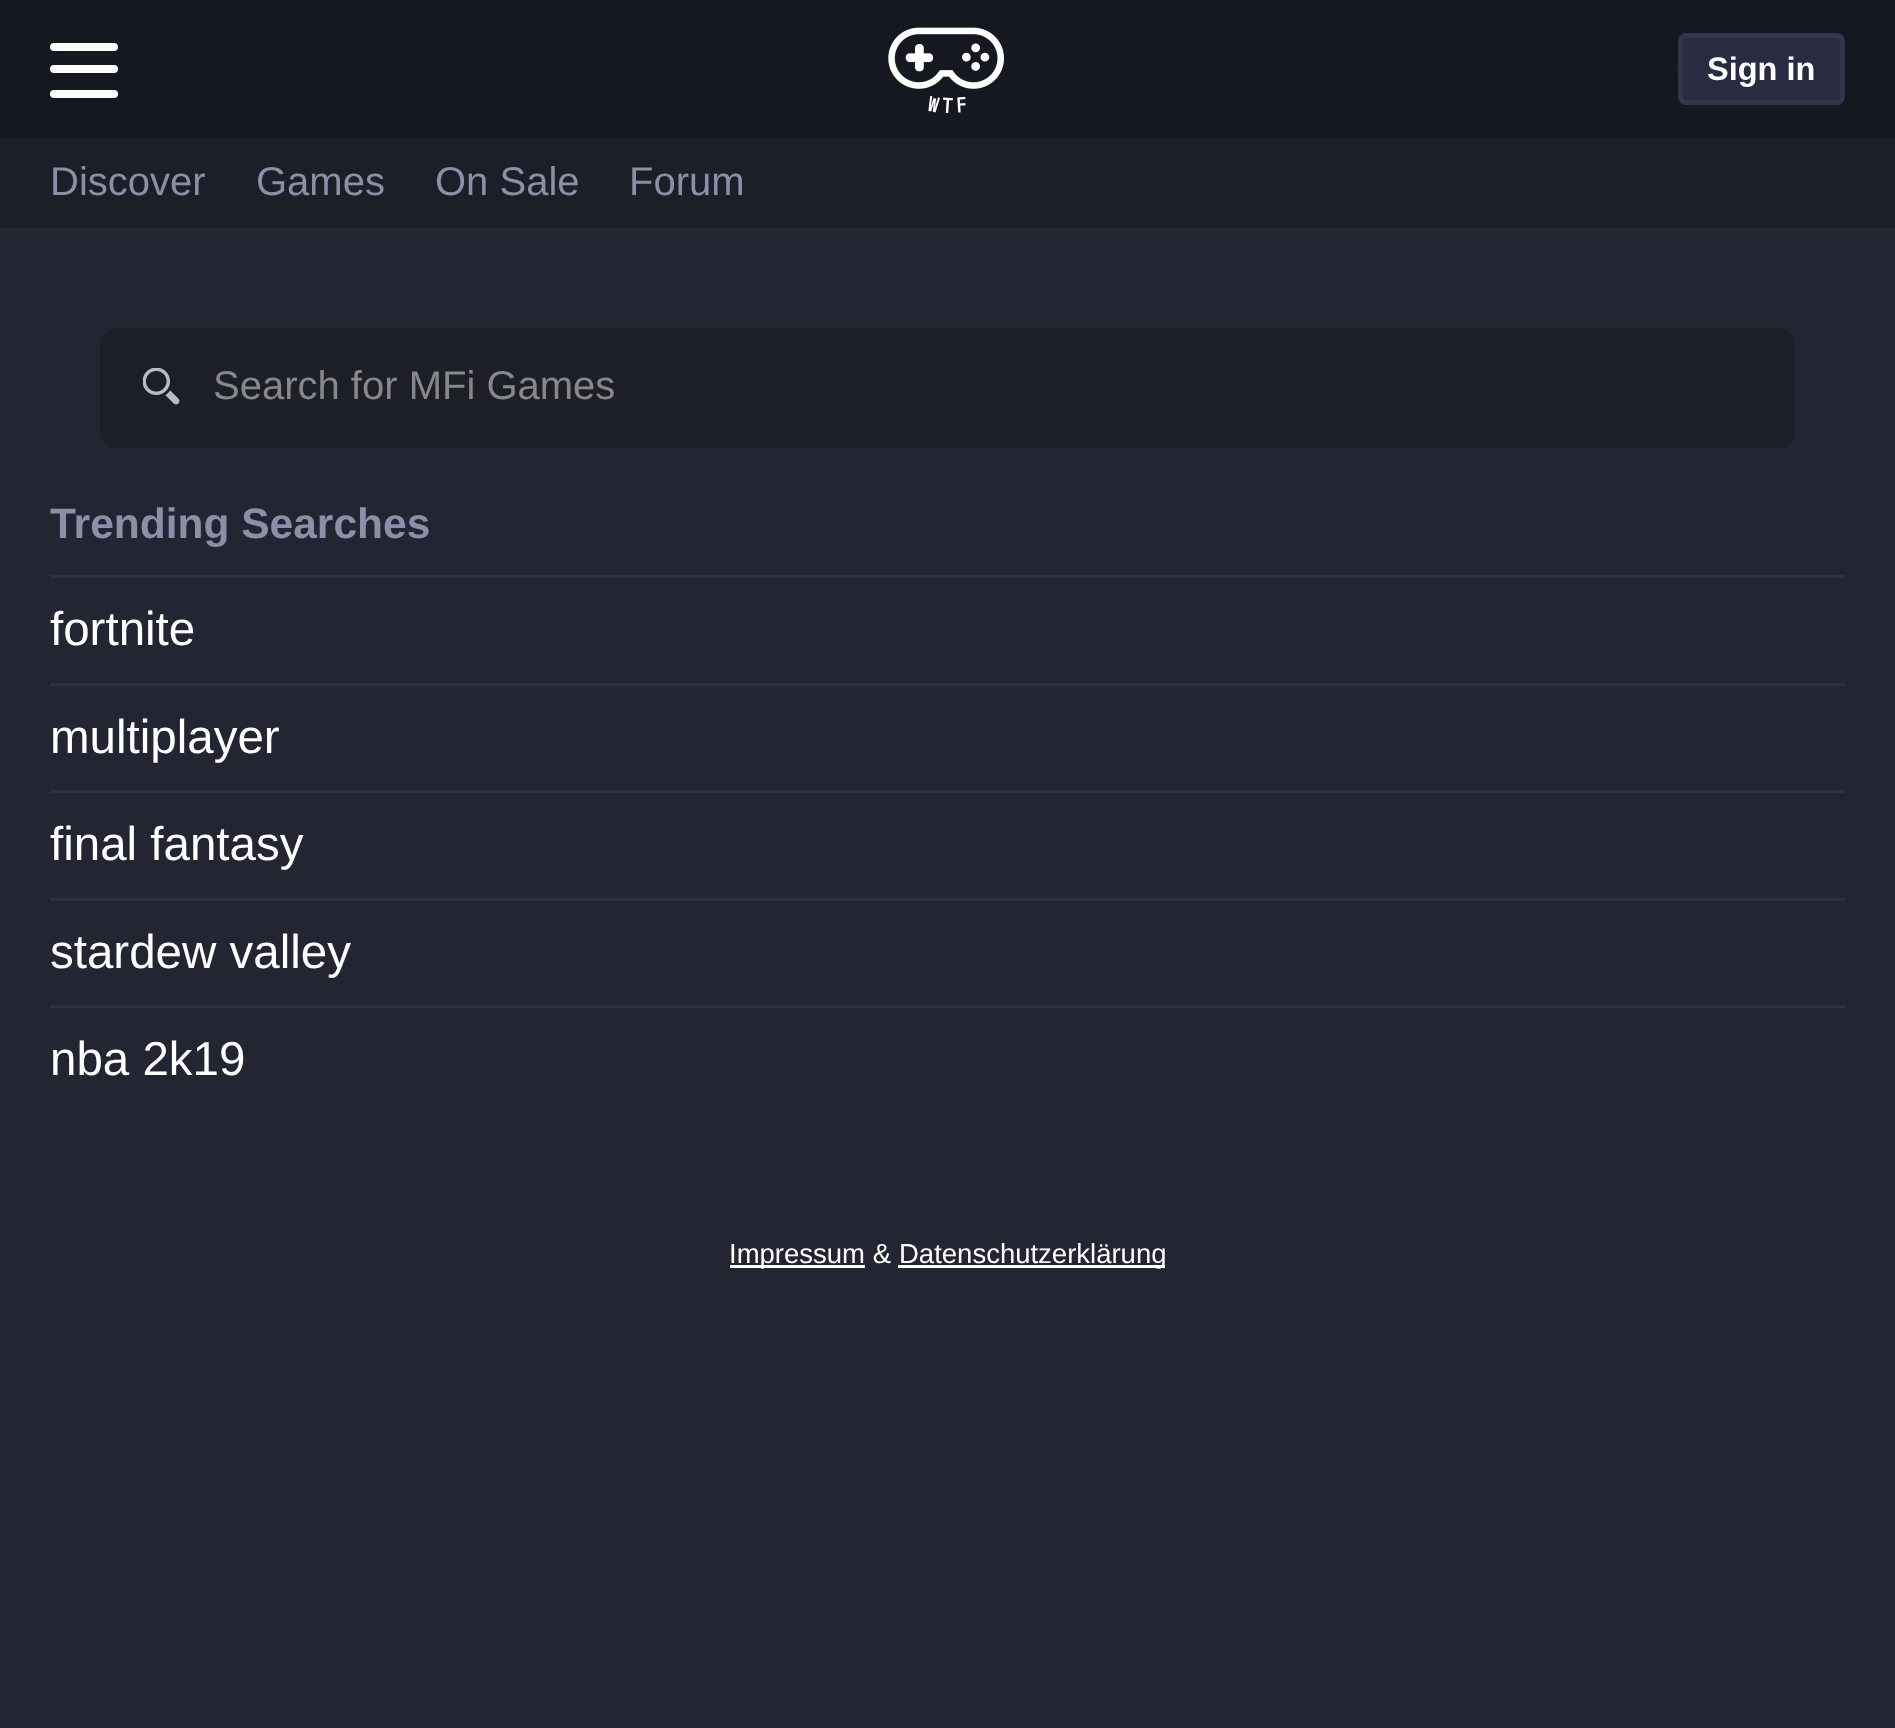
async function draw(canvas) {
  canvas.width = 1895
  canvas.height = 1728
  const ctx = canvas.getContext('2d')
  ctx.miterLimit = 4
  ctx.fontKerning = 'normal'
  async function loadImage(src) {
    const img = new Image()
    img.src = src
    await img.decode()
    return img
  }

  ctx.fillStyle = '#232532'
  ctx.fillRect(0, 0, 1895, 1728)
  ctx.fillStyle = '#151721'
  ctx.fillRect(0, 0, 1895, 138)
  ctx.fillStyle = '#fff'
  ctx.beginPath()
  ctx.roundRect(50, 65, 68, 8, 4)
  ctx.fill()
  ctx.beginPath()
  ctx.roundRect(50, 43, 68, 8, 4)
  ctx.fill()
  ctx.beginPath()
  ctx.roundRect(50, 90, 68, 8, 4)
  ctx.fill()
  ctx.drawImage(await loadImage('image0.png'), 888, 27, 116, 86)
  ctx.fillStyle = '#1c1e28'
  ctx.beginPath()
  ctx.ellipse(1761, 69, 84, 36, 0, 0, 2 * Math.PI)
  ctx.fill()
  ctx.fillStyle = '#292c40'
  ctx.beginPath()
  ctx.roundRect(1680.5, 35.5, 162, 67, 5.5)
  ctx.fill()
  ctx.strokeStyle = '#32354c'
  ctx.lineWidth = 5
  ctx.stroke()
  ctx.font = 'bold 32.5px Liberation Sans'
  ctx.fillStyle = '#fff'
  ctx.fillText('Sign in', 1707, 80)
  ctx.fillStyle = '#1c1e28'
  ctx.fillRect(0, 138, 1895, 90)
  ctx.font = '40px Liberation Sans'
  ctx.fillStyle = '#8b8fa7'
  ctx.fillText('Discover', 50, 195)
  ctx.fillText('Games', 256, 195)
  ctx.fillText('On Sale', 435, 195)
  ctx.fillText('Forum', 629, 195)
  ctx.fillStyle = '#1c1e28'
  ctx.beginPath()
  ctx.roundRect(100, 328, 1695, 122, 18)
  ctx.fill()
  ctx.save()
  ctx.beginPath()
  ctx.roundRect(100, 328, 1695, 122, 18)
  ctx.clip()
  ctx.fillStyle = '#232532'
  ctx.fillRect(108, 448, 1680, 2)
  ctx.restore()
  ctx.drawImage(await loadImage('image1.png'), 143, 368, 37, 37)
  ctx.fillStyle = '#888'
  ctx.fillText('Search for MFi Games', 213, 399)
  ctx.font = 'bold 42.5px Liberation Sans'
  ctx.fillStyle = '#8b8fa7'
  ctx.fillText('Trending Searches', 50, 538)
  ctx.fillStyle = '#2d303e'
  ctx.fillRect(50, 575, 1795, 3)
  ctx.font = '47.5px Liberation Sans'
  ctx.fillStyle = '#fff'
  ctx.fillText('fortnite', 50, 645)
  ctx.fillStyle = '#2d303e'
  ctx.fillRect(50, 683, 1795, 3)
  ctx.fillStyle = '#fff'
  ctx.fillText('multiplayer', 50, 753)
  ctx.fillStyle = '#2d303e'
  ctx.fillRect(50, 790, 1795, 3)
  ctx.fillStyle = '#fff'
  ctx.fillText('final fantasy', 50, 860)
  ctx.fillStyle = '#2d303e'
  ctx.fillRect(50, 898, 1795, 3)
  ctx.fillStyle = '#fff'
  ctx.fillText('stardew valley', 50, 968)
  ctx.fillStyle = '#2d303e'
  ctx.fillRect(50, 1005, 1795, 3)
  ctx.fillStyle = '#fff'
  ctx.fillText('nba 2k19', 50, 1075)
  ctx.fillRect(730, 1265, 135, 3)
  ctx.font = '27.5px Liberation Sans'
  ctx.fillText('Impressum &', 729, 1263)
  ctx.fillRect(898, 1265, 267, 3)
  ctx.fillText('Datenschutzerklärung', 899, 1263)
}

draw(document.querySelector('canvas'))
